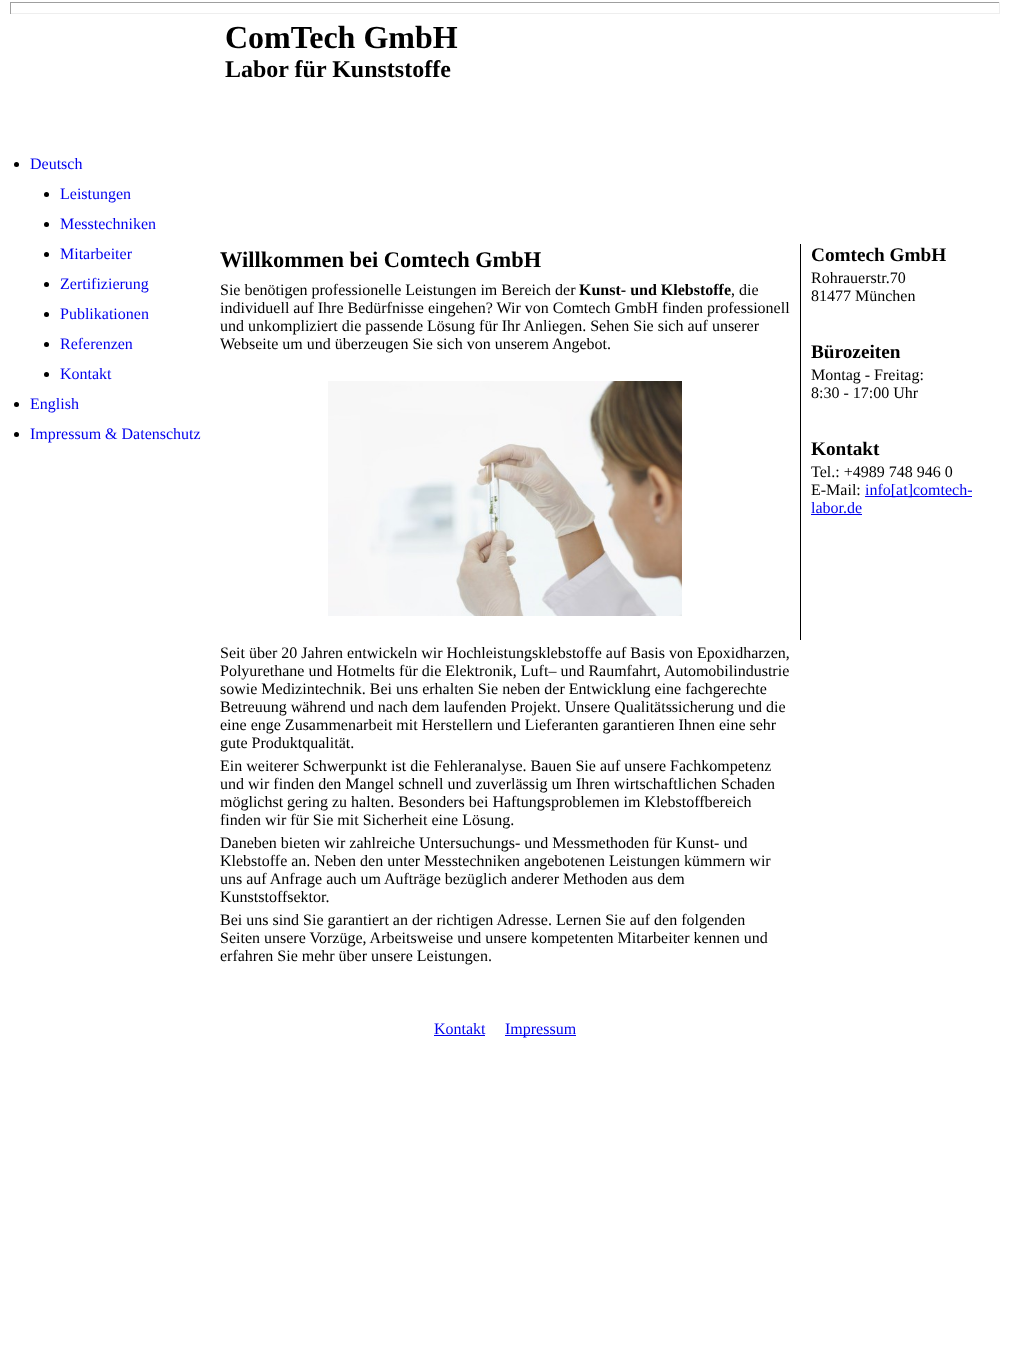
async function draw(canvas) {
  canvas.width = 1010
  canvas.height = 1353
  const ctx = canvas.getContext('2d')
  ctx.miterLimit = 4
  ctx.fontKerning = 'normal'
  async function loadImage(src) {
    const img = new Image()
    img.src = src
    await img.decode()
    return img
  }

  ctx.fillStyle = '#fff'
  ctx.fillRect(0, 0, 1010, 1353)
  ctx.fillStyle = '#9f9f9f'
  ctx.fillRect(10, 2, 990, 1)
  ctx.fillStyle = '#eee'
  ctx.fillRect(999, 2, 1, 12)
  ctx.fillRect(10, 13, 990, 1)
  ctx.fillStyle = '#9f9f9f'
  ctx.fillRect(10, 2, 1, 12)
  ctx.font = 'bold 32px Liberation Serif'
  ctx.fillStyle = '#000'
  ctx.fillText('ComTech GmbH', 225, 48)
  ctx.font = 'bold 24px Liberation Serif'
  ctx.fillText('Labor für Kunststoffe', 225, 77)
  ctx.beginPath()
  ctx.arc(16.5, 164.5, 2.5, 0, 2 * Math.PI)
  ctx.fill()
  ctx.font = '16px Liberation Serif'
  ctx.fillStyle = '#00e'
  ctx.fillText('Deutsch', 30, 169)
  ctx.fillStyle = '#000'
  ctx.beginPath()
  ctx.arc(46.5, 194.5, 2.5, 0, 2 * Math.PI)
  ctx.fill()
  ctx.fillStyle = '#00e'
  ctx.fillText('Leistungen', 60, 199)
  ctx.fillStyle = '#000'
  ctx.beginPath()
  ctx.arc(46.5, 224.5, 2.5, 0, 2 * Math.PI)
  ctx.fill()
  ctx.fillStyle = '#00e'
  ctx.fillText('Messtechniken', 60, 229)
  ctx.fillStyle = '#000'
  ctx.beginPath()
  ctx.arc(46.5, 254.5, 2.5, 0, 2 * Math.PI)
  ctx.fill()
  ctx.fillStyle = '#00e'
  ctx.fillText('Mitarbeiter', 60, 259)
  ctx.fillStyle = '#000'
  ctx.beginPath()
  ctx.arc(46.5, 284.5, 2.5, 0, 2 * Math.PI)
  ctx.fill()
  ctx.fillStyle = '#00e'
  ctx.fillText('Zertifizierung', 60, 289)
  ctx.fillStyle = '#000'
  ctx.beginPath()
  ctx.arc(46.5, 314.5, 2.5, 0, 2 * Math.PI)
  ctx.fill()
  ctx.fillStyle = '#00e'
  ctx.fillText('Publikationen', 60, 319)
  ctx.fillStyle = '#000'
  ctx.beginPath()
  ctx.arc(46.5, 344.5, 2.5, 0, 2 * Math.PI)
  ctx.fill()
  ctx.fillStyle = '#00e'
  ctx.fillText('Referenzen', 60, 349)
  ctx.fillStyle = '#000'
  ctx.beginPath()
  ctx.arc(46.5, 374.5, 2.5, 0, 2 * Math.PI)
  ctx.fill()
  ctx.fillStyle = '#00e'
  ctx.fillText('Kontakt', 60, 379)
  ctx.fillStyle = '#000'
  ctx.beginPath()
  ctx.arc(16.5, 404.5, 2.5, 0, 2 * Math.PI)
  ctx.fill()
  ctx.fillStyle = '#00e'
  ctx.fillText('English', 30, 409)
  ctx.fillStyle = '#000'
  ctx.beginPath()
  ctx.arc(16.5, 434.5, 2.5, 0, 2 * Math.PI)
  ctx.fill()
  ctx.fillStyle = '#00e'
  ctx.fillText('Impressum & Datenschutz', 30, 439)
  ctx.font = 'bold 22.4px Liberation Serif'
  ctx.fillStyle = '#000'
  ctx.fillText('Willkommen bei Comtech GmbH', 220, 267)
  ctx.font = '16px Liberation Serif'
  ctx.fillText('Sie benötigen professionelle Leistungen im Bereich der', 220, 295)
  ctx.font = 'bold 16px Liberation Serif'
  ctx.fillText('Kunst- und Klebstoffe', 579, 295)
  ctx.font = '16px Liberation Serif'
  ctx.fillText(', die', 731, 295)
  ctx.fillText('individuell auf Ihre Bedürfnisse eingehen? Wir von Comtech GmbH finden professionell', 220, 313)
  ctx.fillText('und unkompliziert die passende Lösung für Ihr Anliegen. Sehen Sie sich auf unserer', 220, 331)
  ctx.fillText('Webseite um und überzeugen Sie sich von unserem Angebot.', 220, 349)
  ctx.drawImage(await loadImage('image0.png'), 328, 381, 354, 235)
  ctx.fillText('Seit über 20 Jahren entwickeln wir Hochleistungsklebstoffe auf Basis von Epoxidharzen,', 220, 658)
  ctx.fillText('Polyurethane und Hotmelts für die Elektronik, Luft– und Raumfahrt, Automobilindustrie', 220, 676)
  ctx.fillText('sowie Medizintechnik. Bei uns erhalten Sie neben der Entwicklung eine fachgerechte', 220, 694)
  ctx.fillText('Betreuung während und nach dem laufenden Projekt. Unsere Qualitätssicherung und die', 220, 712)
  ctx.fillText('eine enge Zusammenarbeit mit Herstellern und Lieferanten garantieren Ihnen eine sehr', 220, 730)
  ctx.fillText('gute Produktqualität.', 220, 748)
  ctx.fillText('Ein weiterer Schwerpunkt ist die Fehleranalyse. Bauen Sie auf unsere Fachkompetenz', 220, 771)
  ctx.fillText('und wir finden den Mangel schnell und zuverlässig um Ihren wirtschaftlichen Schaden', 220, 789)
  ctx.fillText('möglichst gering zu halten. Besonders bei Haftungsproblemen im Klebstoffbereich', 220, 807)
  ctx.fillText('finden wir für Sie mit Sicherheit eine Lösung.', 220, 825)
  ctx.fillText('Daneben bieten wir zahlreiche Untersuchungs- und Messmethoden für Kunst- und', 220, 848)
  ctx.fillText('Klebstoffe an. Neben den unter Messtechniken angebotenen Leistungen kümmern wir', 220, 866)
  ctx.fillText('uns auf Anfrage auch um Aufträge bezüglich anderer Methoden aus dem', 220, 884)
  ctx.fillText('Kunststoffsektor.', 220, 902)
  ctx.fillText('Bei uns sind Sie garantiert an der richtigen Adresse. Lernen Sie auf den folgenden', 220, 925)
  ctx.fillText('Seiten unsere Vorzüge, Arbeitsweise und unsere kompetenten Mitarbeiter kennen und', 220, 943)
  ctx.fillText('erfahren Sie mehr über unsere Leistungen.', 220, 961)
  ctx.fillRect(800, 244, 1, 396)
  ctx.font = 'bold 19.25px Liberation Serif'
  ctx.fillText('Comtech GmbH', 811, 261)
  ctx.font = '16px Liberation Serif'
  ctx.fillText('Rohrauerstr.70', 811, 283)
  ctx.fillText('81477 München', 811, 301)
  ctx.font = 'bold 19.25px Liberation Serif'
  ctx.fillText('Bürozeiten', 811, 358)
  ctx.font = '16px Liberation Serif'
  ctx.fillText('Montag - Freitag:', 811, 380)
  ctx.fillText('8:30 - 17:00 Uhr', 811, 398)
  ctx.font = 'bold 19.25px Liberation Serif'
  ctx.fillText('Kontakt', 811, 455)
  ctx.font = '16px Liberation Serif'
  ctx.fillText('Tel.: +4989 748 946 0', 811, 477)
  ctx.fillText('E-Mail:', 811, 495)
  ctx.fillStyle = '#00e'
  ctx.fillRect(865, 496, 107, 1)
  ctx.fillText('info[at]comtech-', 865, 495)
  ctx.fillText('labor.de', 811, 513)
  ctx.fillRect(811, 514, 51, 1)
  ctx.fillText('Kontakt', 434, 1034)
  ctx.fillRect(434, 1035, 51, 1)
  ctx.fillRect(505, 1035, 71, 1)
  ctx.fillText('Impressum', 505, 1034)
}

draw(document.querySelector('canvas'))
